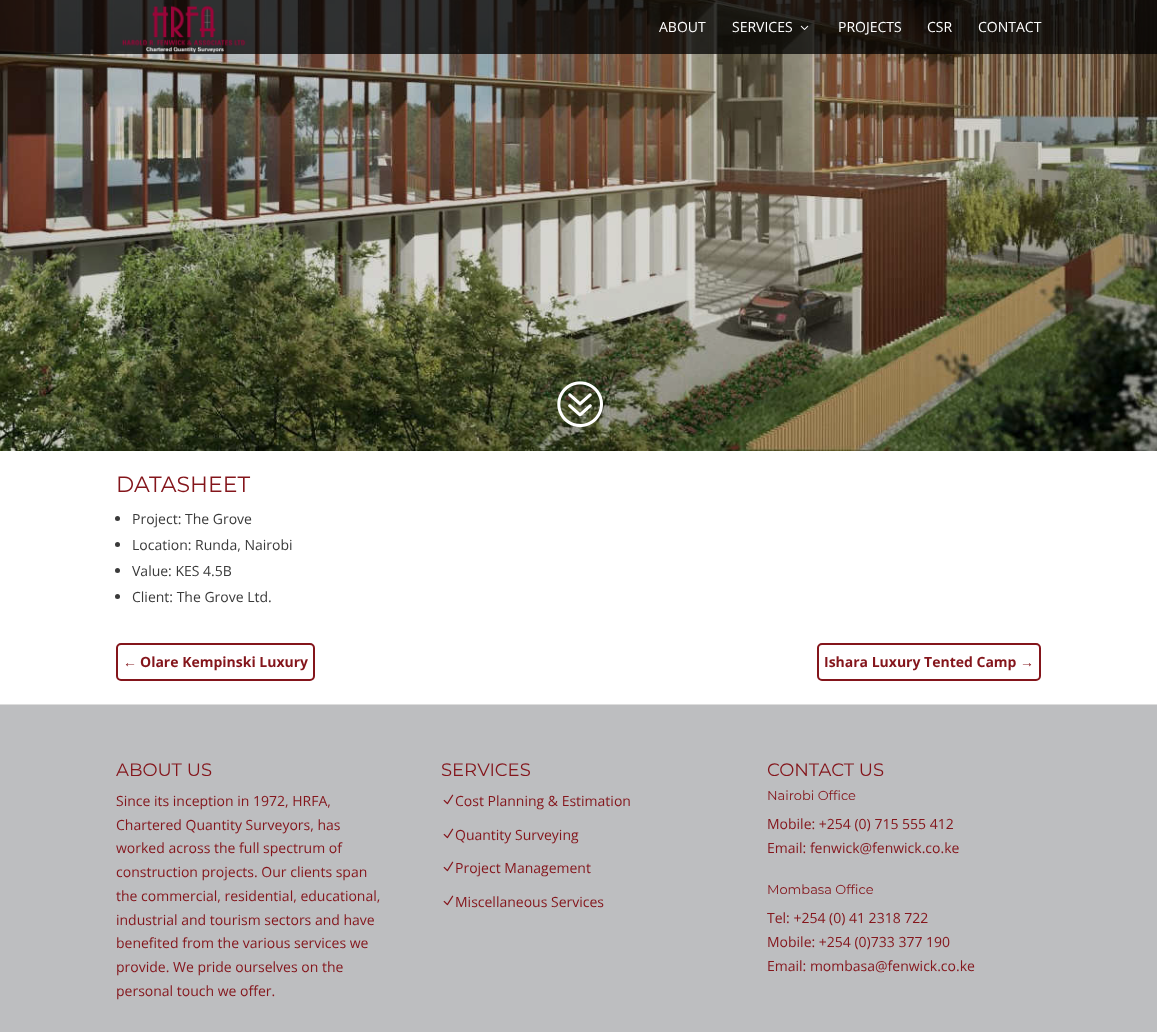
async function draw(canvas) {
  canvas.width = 1157
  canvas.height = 1032
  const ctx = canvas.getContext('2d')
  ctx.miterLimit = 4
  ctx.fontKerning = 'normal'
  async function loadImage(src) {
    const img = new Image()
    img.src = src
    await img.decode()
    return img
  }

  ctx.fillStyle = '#fff'
  ctx.fillRect(0, 0, 1157, 1032)
  ctx.drawImage(await loadImage('image2.png'), 0, 0, 1157, 451)
  ctx.fillStyle = '#000000bf'
  ctx.fillRect(0, 0, 1157, 54)
  ctx.drawImage(await loadImage('image0.png'), 122, 5, 124, 48)
  ctx.font = '14px Open Sans'
  ctx.fillStyle = '#fff'
  ctx.fillText('ABOUT', 659, 32)
  ctx.fillText('SERVICES', 732, 32)
  ctx.drawImage(await loadImage('image1.png'), 800, 25, 9, 5)
  ctx.fillText('PROJECTS', 838, 32)
  ctx.fillText('CSR', 927, 32)
  ctx.fillText('CONTACT', 978, 32)
  ctx.drawImage(await loadImage('image3.png'), 557, 381, 46, 47)
  ctx.font = '22px Montserrat'
  ctx.fillStyle = '#84151b'
  ctx.fillText('DATASHEET', 116, 492)
  ctx.fillStyle = '#3a3a3a'
  ctx.beginPath()
  ctx.arc(117.5, 518.5, 2.5, 0, 2 * Math.PI)
  ctx.fill()
  ctx.font = '14px Open Sans'
  ctx.fillText('Project: The Grove', 132, 524)
  ctx.beginPath()
  ctx.arc(117.5, 544.5, 2.5, 0, 2 * Math.PI)
  ctx.fill()
  ctx.fillText('Location: Runda, Nairobi', 132, 550)
  ctx.beginPath()
  ctx.arc(117.5, 570.5, 2.5, 0, 2 * Math.PI)
  ctx.fill()
  ctx.fillText('Value: KES 4.5B', 132, 576)
  ctx.beginPath()
  ctx.arc(117.5, 596.5, 2.5, 0, 2 * Math.PI)
  ctx.fill()
  ctx.fillText('Client: The Grove Ltd.', 132, 602)
  ctx.beginPath()
  ctx.roundRect(117, 644, 197, 36, 4)
  ctx.strokeStyle = '#84151b'
  ctx.lineWidth = 2
  ctx.stroke()
  ctx.font = 'bold 14px Liberation Sans'
  ctx.fillStyle = '#84151b'
  ctx.fillText('←', 123, 667)
  ctx.font = 'bold 14px Open Sans'
  ctx.fillText('Olare Kempinski Luxury', 140, 667)
  ctx.beginPath()
  ctx.roundRect(818, 644, 222, 36, 4)
  ctx.stroke()
  ctx.fillText('Ishara Luxury Tented Camp', 824, 667)
  ctx.font = 'bold 14px Liberation Sans'
  ctx.fillText('→', 1020, 667)
  ctx.fillStyle = '#bdbec0'
  ctx.fillRect(0, 705, 1157, 327)
  ctx.fillStyle = '#ddd'
  ctx.fillRect(0, 704, 1157, 1)
  ctx.font = '18px Montserrat'
  ctx.fillStyle = '#84151b'
  ctx.fillText('ABOUT US', 116, 776)
  ctx.font = '14px Open Sans'
  ctx.fillText('Since its inception in 1972, HRFA,', 116, 806)
  ctx.fillText('Chartered Quantity Surveyors, has', 116, 830)
  ctx.fillText('worked across the full spectrum of', 116, 853)
  ctx.fillText('construction projects. Our clients span', 116, 877)
  ctx.fillText('the commercial, residential, educational,', 116, 901)
  ctx.fillText('industrial and tourism sectors and have', 116, 925)
  ctx.fillText('benefited from the various services we', 116, 948)
  ctx.fillText('provide. We pride ourselves on the', 116, 972)
  ctx.fillText('personal touch we offer.', 116, 996)
  ctx.font = '18px Montserrat'
  ctx.fillText('SERVICES', 441, 776)
  ctx.drawImage(await loadImage('image4.png'), 443, 794, 11, 11)
  ctx.font = '14px Open Sans'
  ctx.fillText('Cost Planning & Estimation', 455, 806)
  ctx.drawImage(await loadImage('image4.png'), 443, 828, 11, 11)
  ctx.fillText('Quantity Surveying', 455, 840)
  ctx.drawImage(await loadImage('image4.png'), 443, 861, 11, 11)
  ctx.fillText('Project Management', 455, 873)
  ctx.drawImage(await loadImage('image4.png'), 443, 895, 11, 11)
  ctx.fillText('Miscellaneous Services', 455, 907)
  ctx.font = '18px Montserrat'
  ctx.fillText('CONTACT US', 767, 776)
  ctx.font = '13px Montserrat'
  ctx.fillText('Nairobi Office', 767, 800)
  ctx.font = '14px Open Sans'
  ctx.fillText('Mobile: +254 (0) 715 555 412', 767, 829)
  ctx.fillText('Email: fenwick@fenwick.co.ke', 767, 853)
  ctx.font = '13px Montserrat'
  ctx.fillText('Mombasa Office', 767, 894)
  ctx.font = '14px Open Sans'
  ctx.fillText('Tel: +254 (0) 41 2318 722', 767, 923)
  ctx.fillText('Mobile: +254 (0)733 377 190', 767, 947)
  ctx.fillText('Email: mombasa@fenwick.co.ke', 767, 971)
}

draw(document.querySelector('canvas'))
